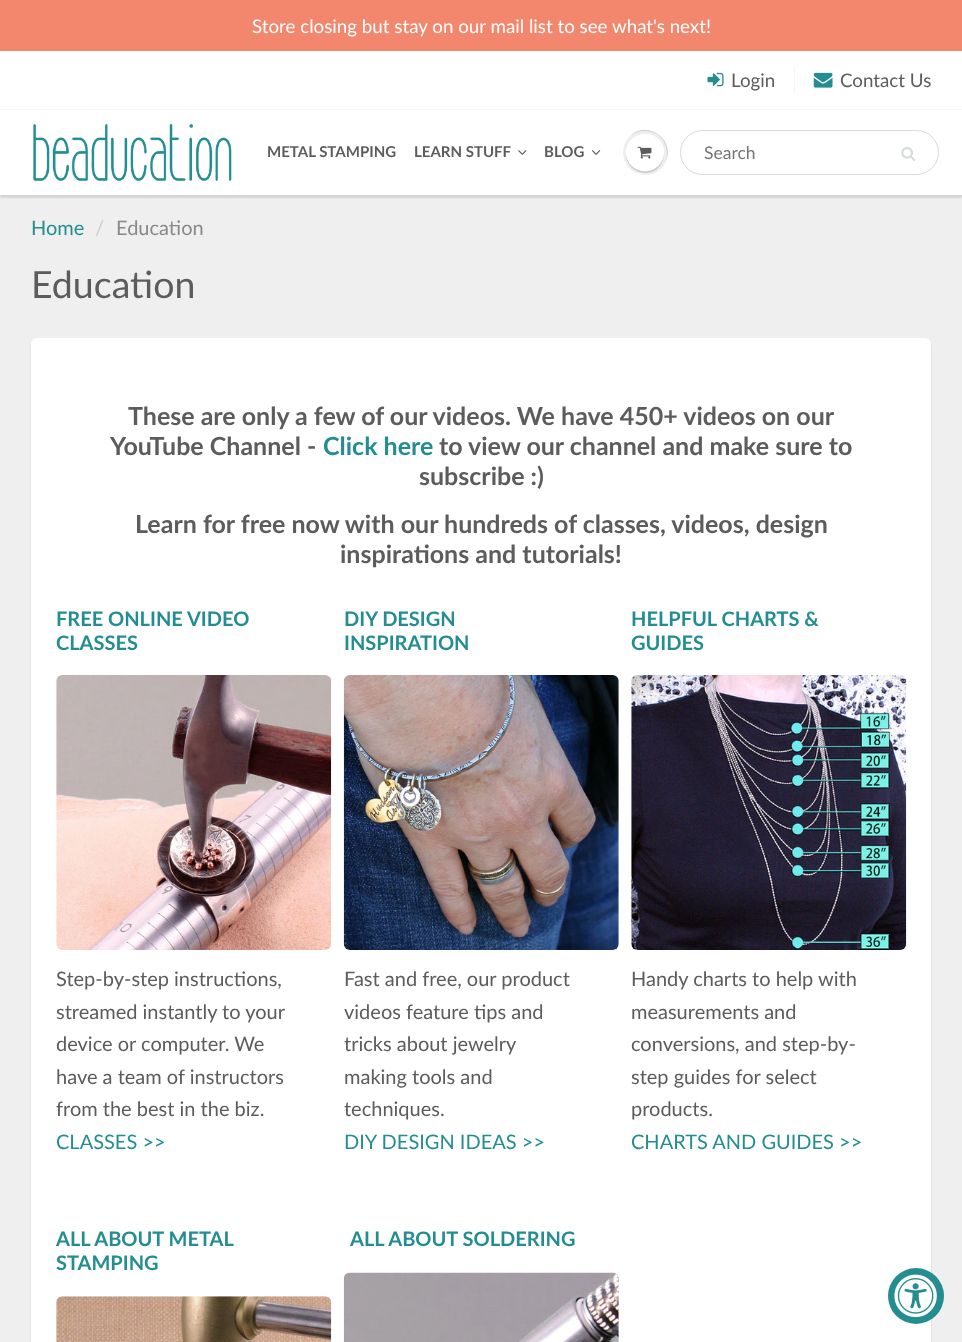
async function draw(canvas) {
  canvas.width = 962
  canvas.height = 1342
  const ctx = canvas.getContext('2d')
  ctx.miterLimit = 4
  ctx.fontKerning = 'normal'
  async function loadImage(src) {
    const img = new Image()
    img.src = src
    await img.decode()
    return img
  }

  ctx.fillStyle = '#fff'
  ctx.fillRect(0, 0, 962, 1342)
  ctx.fillStyle = '#f3876e'
  ctx.fillRect(0, 0, 962, 51)
  ctx.font = '18.75px Lato'
  ctx.fillStyle = '#fff'
  ctx.fillText('Store closing but stay on our mail list to see what\'s next!', 252, 33)
  ctx.drawImage(await loadImage('image0.png'), 707, 72, 17, 15)
  ctx.fillStyle = '#5c5c5c'
  ctx.fillText('Login', 731, 87)
  ctx.fillStyle = '#f3f6f6'
  ctx.fillRect(794, 66, 1, 28)
  ctx.drawImage(await loadImage('image1.png'), 813, 72, 20, 16)
  ctx.fillStyle = '#5c5c5c'
  ctx.fillText('Contact Us', 840, 87)
  ctx.fillStyle = '#efefef'
  ctx.fillRect(0, 195, 962, 1147)
  ctx.save()
  ctx.beginPath()
  ctx.rect(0, 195, 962, 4)
  ctx.clip()
  ctx.fillStyle = '#0b191c1f'
  ctx.filter = 'blur(1px)'
  ctx.beginPath()
  ctx.rect(0, 111, 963, 87)
  ctx.fill()
  ctx.filter = 'none'
  ctx.restore()
  ctx.fillStyle = '#f3f6f6'
  ctx.fillRect(0, 109, 962, 1)
  ctx.drawImage(await loadImage('image2.png'), 33, 123, 199, 59)
  ctx.font = 'bold 15px Lato'
  ctx.fillStyle = '#5c5c5c'
  ctx.fillText('METAL STAMPING', 267, 157)
  ctx.fillText('LEARN STUFF', 414, 157)
  ctx.drawImage(await loadImage('image3.png'), 518, 150, 9, 5)
  ctx.fillText('BLOG', 544, 157)
  ctx.drawImage(await loadImage('image4.png'), 591, 150, 10, 5)
  ctx.fillStyle = '#edefef'
  ctx.beginPath()
  ctx.arc(645.5, 152.5, 22.5, 0, 2 * Math.PI)
  ctx.fill()
  ctx.fillStyle = '#c9cbcb'
  ctx.beginPath()
  ctx.moveTo(645, 131)
  ctx.bezierCurveTo(663, 131, 670, 148, 666, 161)
  ctx.bezierCurveTo(675, 139, 647, 120, 630, 136)
  ctx.bezierCurveTo(634, 133, 639, 131, 645, 131)
  ctx.closePath()
  ctx.fill()
  ctx.beginPath()
  ctx.moveTo(626.5, 150)
  ctx.bezierCurveTo(622, 170, 649, 182, 661, 164.5)
  ctx.bezierCurveTo(663.5, 160.5, 664.5, 155, 663.5, 150)
  ctx.bezierCurveTo(664, 154.5, 663, 159, 660.5, 163)
  ctx.bezierCurveTo(649.5, 179.5, 624, 169.5, 626.5, 150)
  ctx.closePath()
  ctx.fill()
  ctx.fillStyle = '#fff'
  ctx.beginPath()
  ctx.roundRect(626, 134, 38, 37, 18.5)
  ctx.fill()
  ctx.beginPath()
  ctx.moveTo(645, 135)
  ctx.bezierCurveTo(659, 135, 665, 147, 663, 157)
  ctx.bezierCurveTo(665, 152, 664, 146, 661, 142)
  ctx.bezierCurveTo(649, 125, 622, 137, 627, 157)
  ctx.bezierCurveTo(625, 147, 631, 135, 645, 135)
  ctx.closePath()
  ctx.fill()
  ctx.drawImage(await loadImage('image5.png'), 637, 146, 15, 13)
  ctx.beginPath()
  ctx.roundRect(680.5, 130.5, 258, 44, 22)
  ctx.strokeStyle = '#d7dbdb'
  ctx.stroke()
  ctx.font = '17.5px Lato'
  ctx.fillStyle = '#757575'
  ctx.fillText('Search', 704, 159)
  ctx.drawImage(await loadImage('image6.png'), 901, 147, 14, 14)
  ctx.font = '20px Lato'
  ctx.fillStyle = '#238d91'
  ctx.fillText('Home', 31, 235)
  ctx.fillStyle = '#ccc'
  ctx.fillText('/', 95, 235)
  ctx.fillStyle = '#898989'
  ctx.fillText('Education', 116, 235)
  ctx.font = '37.5px Lato'
  ctx.fillStyle = '#5c5c5c'
  ctx.fillText('Education', 31, 298)
  ctx.fillStyle = '#0b191c1a'
  ctx.filter = 'blur(1px)'
  ctx.beginPath()
  ctx.roundRect(31, 340, 900, 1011, 6)
  ctx.fill()
  ctx.filter = 'none'
  ctx.fillStyle = '#fff'
  ctx.beginPath()
  ctx.roundRect(31, 338, 900, 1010, 6)
  ctx.fill()
  ctx.font = 'bold 25px Lato'
  ctx.fillStyle = '#5c5c5c'
  ctx.fillText('These are only a few of our videos. We have 450+ videos on our', 128, 425)
  ctx.fillText('YouTube Channel -', 110, 455)
  ctx.fillStyle = '#238d91'
  ctx.fillText('Click here', 323, 455)
  ctx.fillStyle = '#5c5c5c'
  ctx.fillText('to view our channel and make sure to', 439, 455)
  ctx.fillText('subscribe :)', 419, 485)
  ctx.fillText('Learn for free now with our hundreds of classes, videos, design', 135, 533)
  ctx.fillText('inspirations and tutorials!', 340, 563)
  ctx.font = 'bold 20px Lato'
  ctx.fillStyle = '#238d91'
  ctx.fillText('FREE ONLINE VIDEO', 56, 626)
  ctx.fillText('CLASSES', 56, 650)
  ctx.drawImage(await loadImage('image7.png'), 56, 675, 276, 275)
  ctx.font = '20px Lato'
  ctx.fillStyle = '#5c5c5c'
  ctx.fillText('Step-by-step instructions,', 56, 986)
  ctx.fillText('streamed instantly to your', 56, 1019)
  ctx.fillText('device or computer. We', 56, 1051)
  ctx.fillText('have a team of instructors', 56, 1084)
  ctx.fillText('from the best in the biz.', 56, 1116)
  ctx.fillStyle = '#238d91'
  ctx.fillText('CLASSES >>', 56, 1149)
  ctx.font = 'bold 20px Lato'
  ctx.fillText('DIY DESIGN', 344, 626)
  ctx.fillText('INSPIRATION', 344, 650)
  ctx.drawImage(await loadImage('image8.png'), 343, 675, 276, 275)
  ctx.font = '20px Lato'
  ctx.fillStyle = '#5c5c5c'
  ctx.fillText('Fast and free, our product', 344, 986)
  ctx.fillText('videos feature tips and', 344, 1019)
  ctx.fillText('tricks about jewelry', 344, 1051)
  ctx.fillText('making tools and', 344, 1084)
  ctx.fillText('techniques.', 344, 1116)
  ctx.fillStyle = '#238d91'
  ctx.fillText('DIY DESIGN IDEAS >>', 344, 1149)
  ctx.font = 'bold 20px Lato'
  ctx.fillText('HELPFUL CHARTS &', 631, 626)
  ctx.fillText('GUIDES', 631, 650)
  ctx.drawImage(await loadImage('image9.png'), 631, 675, 276, 275)
  ctx.font = '20px Lato'
  ctx.fillStyle = '#5c5c5c'
  ctx.fillText('Handy charts to help with', 631, 986)
  ctx.fillText('measurements and', 631, 1019)
  ctx.fillText('conversions, and step-by-', 631, 1051)
  ctx.fillText('step guides for select', 631, 1084)
  ctx.fillText('products.', 631, 1116)
  ctx.fillStyle = '#238d91'
  ctx.fillText('CHARTS AND GUIDES >>', 631, 1149)
  ctx.font = 'bold 20px Lato'
  ctx.fillText('ALL ABOUT METAL', 56, 1246)
  ctx.fillText('STAMPING', 56, 1270)
  ctx.drawImage(await loadImage('image10.png'), 56, 1296, 276, 46)
  ctx.fillText('ALL ABOUT SOLDERING', 350, 1246)
  ctx.drawImage(await loadImage('image11.png'), 343, 1272, 276, 70)
  ctx.beginPath()
  ctx.arc(916, 1296, 28, 0, 2 * Math.PI)
  ctx.fill()
  ctx.drawImage(await loadImage('image12.png'), 894, 1274, 43, 44)
}

draw(document.querySelector('canvas'))
